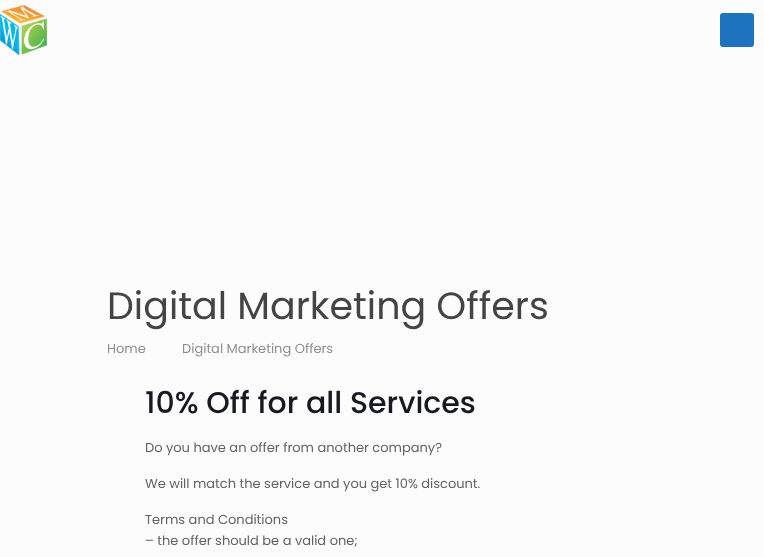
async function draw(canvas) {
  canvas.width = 764
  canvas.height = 557
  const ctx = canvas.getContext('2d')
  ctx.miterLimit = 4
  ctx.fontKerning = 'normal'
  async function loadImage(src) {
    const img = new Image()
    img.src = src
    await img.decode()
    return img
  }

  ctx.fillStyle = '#fcfcfc'
  ctx.fillRect(0, 0, 764, 557)
  ctx.drawImage(await loadImage('image0.png'), 0, 5, 47, 50)
  ctx.fillStyle = '#1e73be'
  ctx.beginPath()
  ctx.roundRect(720, 13, 34, 34, 3)
  ctx.fill()
  ctx.font = '38px Poppins'
  ctx.fillStyle = '#444'
  ctx.fillText('Digital Marketing Offers', 107, 319)
  ctx.font = '13px Poppins'
  ctx.fillStyle = '#8e8e8e'
  ctx.fillText('Home', 107, 353)
  ctx.fillText('Digital Marketing Offers', 182, 353)
  ctx.font = '500 30px Poppins'
  ctx.fillStyle = '#161922'
  ctx.fillText('10% Off for all Services', 145, 413)
  ctx.font = '13px Poppins'
  ctx.fillStyle = '#626262'
  ctx.fillText('Do you have an offer from another company?', 145, 452)
  ctx.fillText('We will match the service and you get 10% discount.', 145, 488)
  ctx.fillText('Terms and Conditions', 145, 524)
  ctx.fillText('– the offer should be a valid one;', 145, 545)
}

draw(document.querySelector('canvas'))
